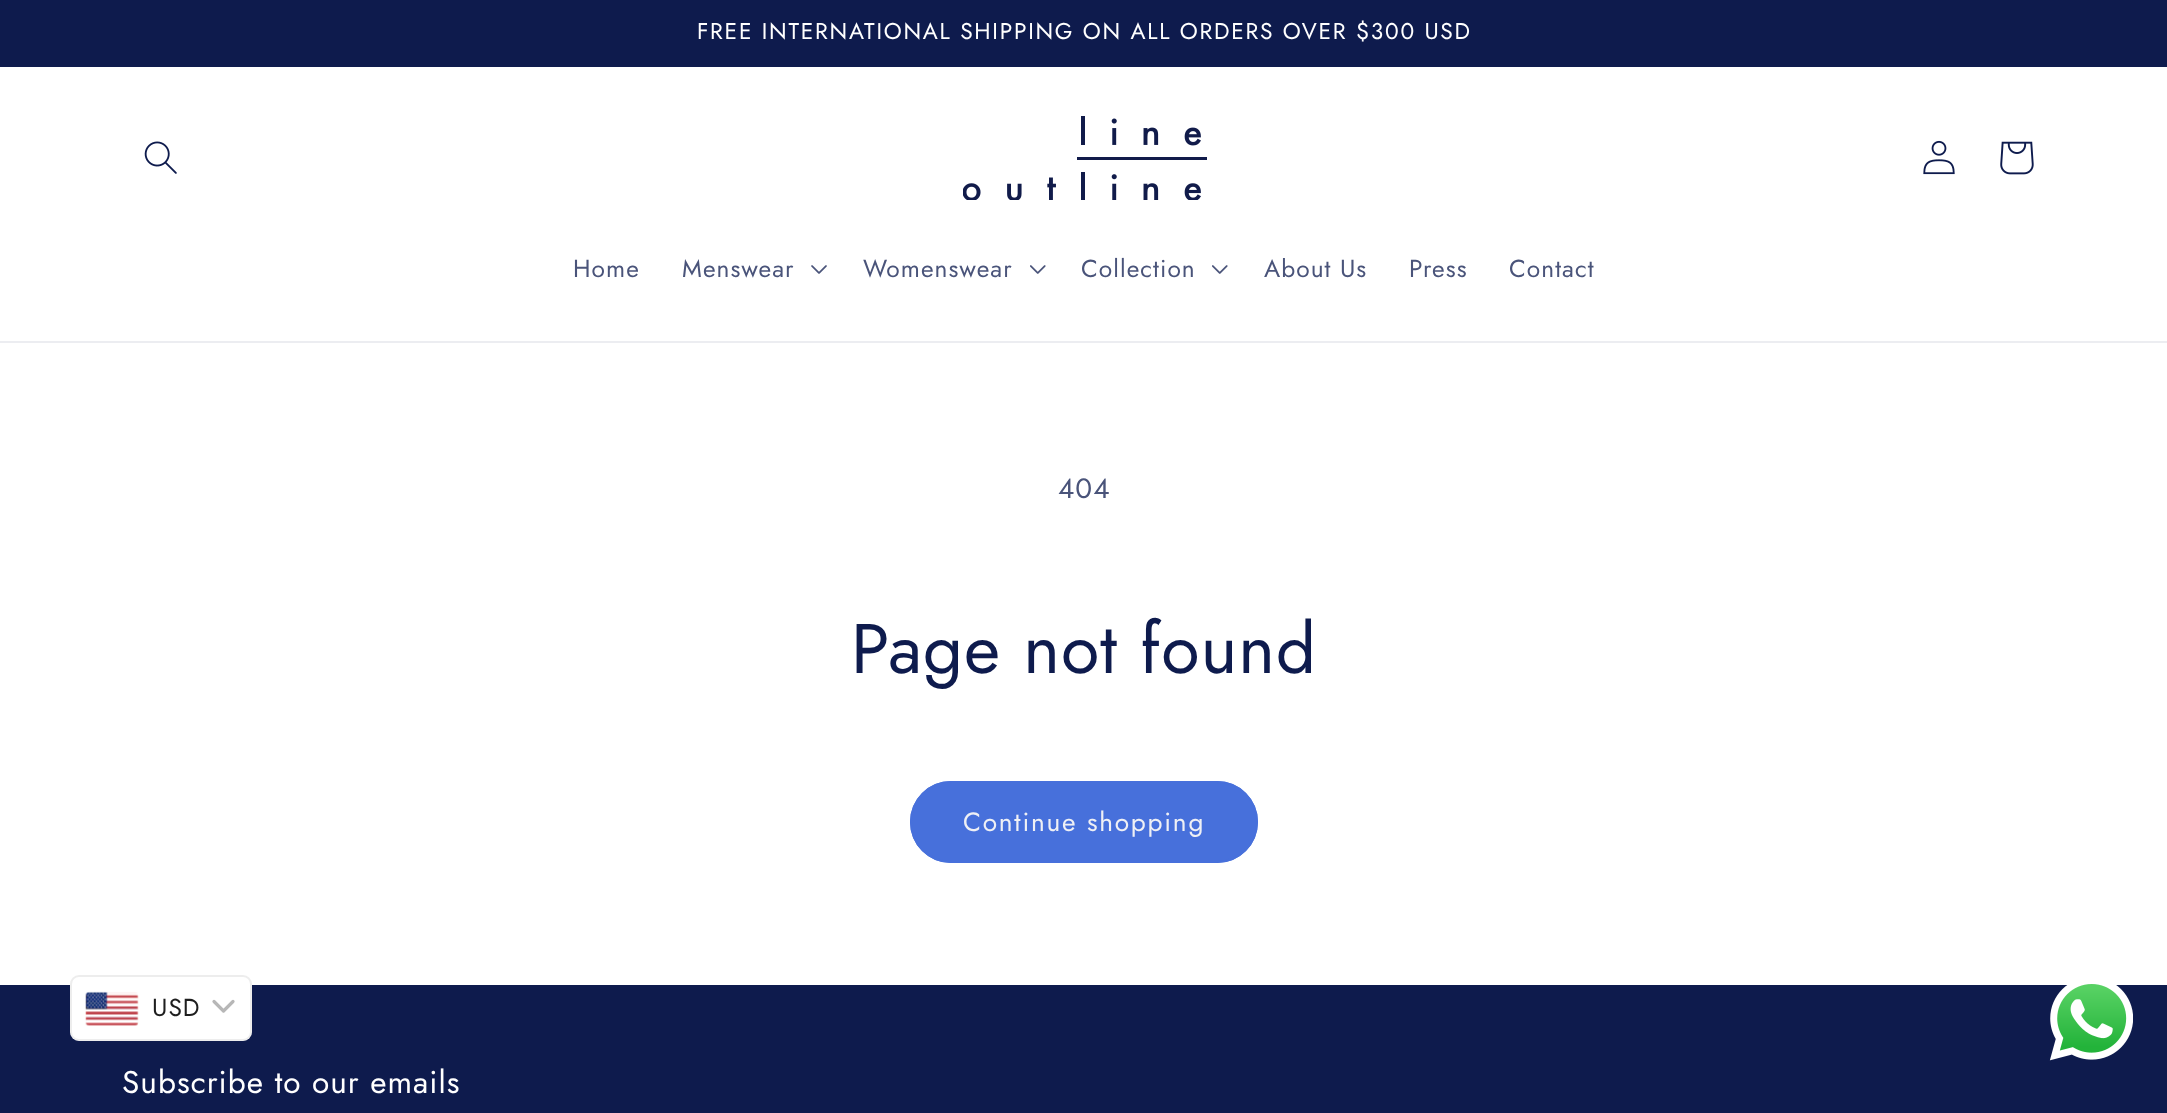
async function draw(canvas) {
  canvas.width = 2167
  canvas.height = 1113
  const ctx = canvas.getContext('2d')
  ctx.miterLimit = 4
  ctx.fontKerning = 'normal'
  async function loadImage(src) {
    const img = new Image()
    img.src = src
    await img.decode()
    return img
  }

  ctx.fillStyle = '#fff'
  ctx.fillRect(0, 0, 2167, 1113)
  ctx.fillStyle = '#0e1b4d'
  ctx.fillRect(0, 0, 2167, 67)
  ctx.letterSpacing = '1.75px'
  ctx.font = '22.75px Jost'
  ctx.fillStyle = '#fff'
  ctx.fillText('FREE INTERNATIONAL SHIPPING ON ALL ORDERS OVER $300 USD', 697, 39)
  ctx.fillStyle = '#ecedf1'
  ctx.fillRect(0, 341, 2167, 2)
  ctx.drawImage(await loadImage('image0.png'), 144, 141, 33, 33)
  ctx.drawImage(await loadImage('image1.png'), 963, 116, 244, 84)
  ctx.drawImage(await loadImage('image2.png'), 1923, 140, 32, 35)
  ctx.drawImage(await loadImage('image3.png'), 2000, 141, 34, 34)
  ctx.letterSpacing = '1.05px'
  ctx.font = '24.5px Jost'
  ctx.fillStyle = '#4a547a'
  ctx.fillText('Home', 573, 277)
  ctx.fillText('Menswear', 682, 277)
  ctx.drawImage(await loadImage('image4.png'), 811, 265, 16, 9)
  ctx.fillText('Womenswear', 863, 277)
  ctx.drawImage(await loadImage('image5.png'), 1030, 265, 16, 9)
  ctx.fillText('Collection', 1081, 277)
  ctx.drawImage(await loadImage('image5.png'), 1212, 265, 16, 9)
  ctx.fillText('About Us', 1264, 277)
  ctx.fillText('Press', 1409, 277)
  ctx.fillText('Contact', 1509, 277)
  ctx.font = '28px Jost'
  ctx.fillText('404', 1058, 498)
  ctx.font = '70px Jost'
  ctx.fillStyle = '#0e1b4d'
  ctx.fillText('Page not found', 851, 673)
  ctx.fillStyle = '#4770db'
  ctx.beginPath()
  ctx.roundRect(910, 781, 348, 82, 41)
  ctx.fill()
  ctx.beginPath()
  ctx.roundRect(911, 782, 346, 80, 40)
  ctx.strokeStyle = '#4770db'
  ctx.lineWidth = 2
  ctx.stroke()
  ctx.letterSpacing = '1.75px'
  ctx.font = '26.25px Jost'
  ctx.fillStyle = '#eff0f5'
  ctx.fillText('Continue shopping', 963, 831)
  ctx.fillStyle = '#0e1b4d'
  ctx.fillRect(0, 985, 2167, 128)
  ctx.fillStyle = '#fff'
  ctx.beginPath()
  ctx.roundRect(70, 975, 182, 66, 9)
  ctx.fill()
  ctx.beginPath()
  ctx.roundRect(71, 976, 180, 64, 8)
  ctx.strokeStyle = '#cccccc5c'
  ctx.stroke()
  ctx.drawImage(await loadImage('image6.png'), 85, 991, 54, 35)
  ctx.letterSpacing = '1.05px'
  ctx.font = '24.5px Jost'
  ctx.fillStyle = '#1e1e1e'
  ctx.fillText('USD', 152, 1016)
  ctx.beginPath()
  ctx.moveTo(214, 1001.5)
  ctx.lineTo(223.5, 1011)
  ctx.lineTo(233, 1001.5)
  ctx.strokeStyle = '#b7b7b7'
  ctx.lineWidth = 3.2
  ctx.lineCap = 'round'
  ctx.lineJoin = 'round'
  ctx.stroke()
  ctx.drawImage(await loadImage('image7.png'), 2049, 984, 84, 77)
  ctx.font = '31.5px Jost'
  ctx.fillStyle = '#fff'
  ctx.fillText('Subscribe to our emails', 122, 1093)
}

draw(document.querySelector('canvas'))
